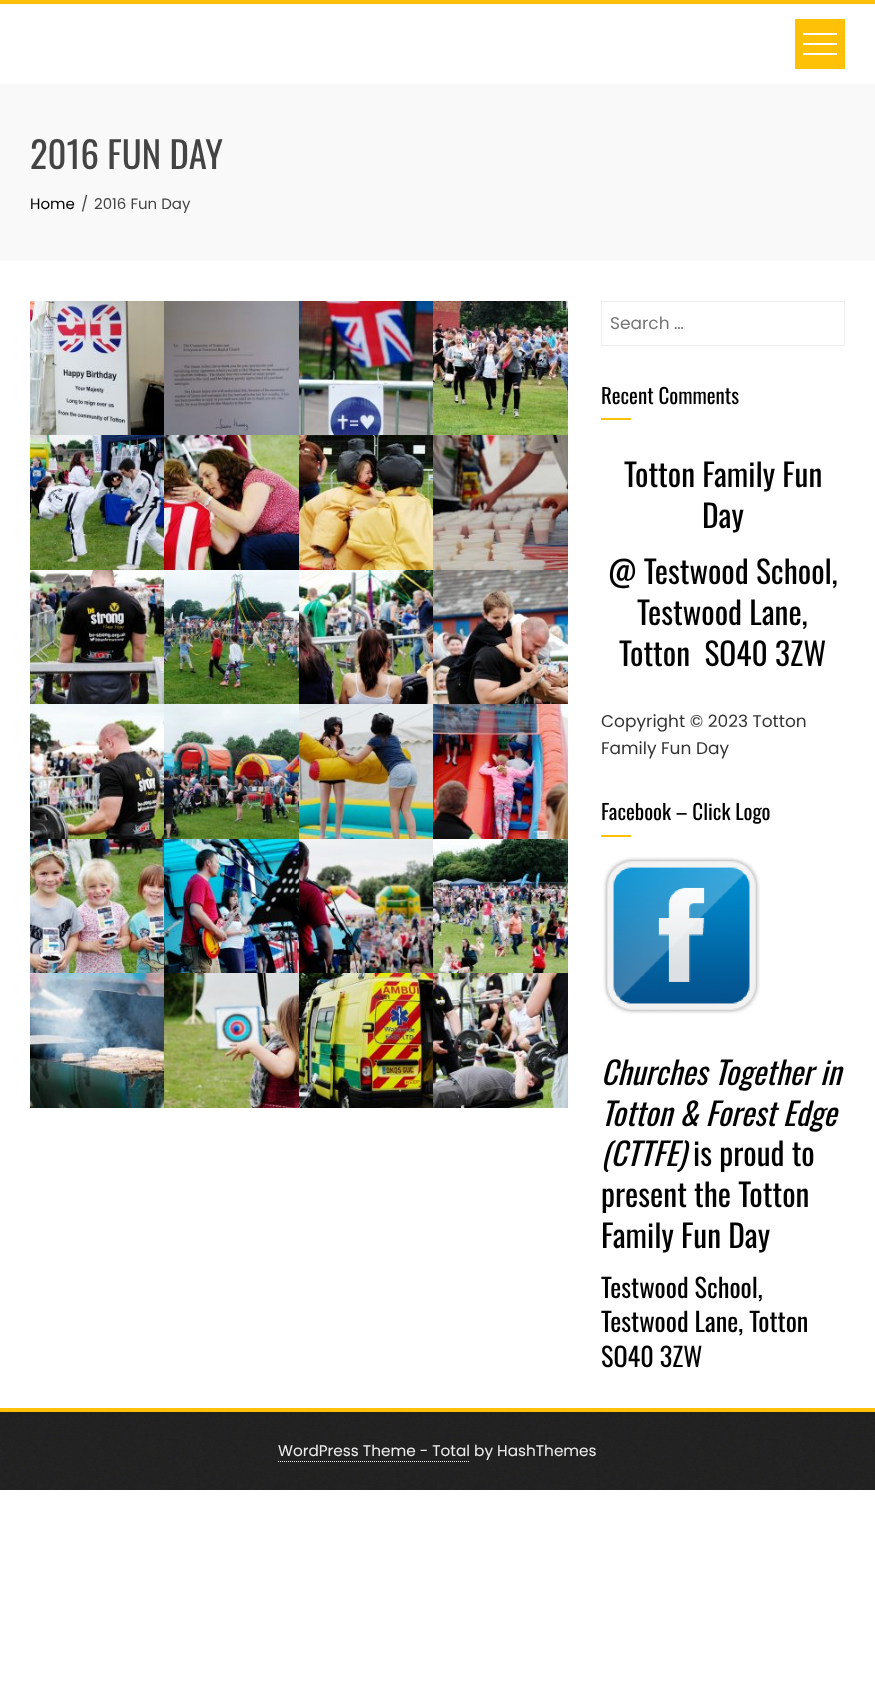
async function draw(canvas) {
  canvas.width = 875
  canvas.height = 1693
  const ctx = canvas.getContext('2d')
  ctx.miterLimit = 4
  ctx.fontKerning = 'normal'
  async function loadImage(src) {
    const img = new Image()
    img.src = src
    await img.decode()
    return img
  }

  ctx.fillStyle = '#fff'
  ctx.fillRect(0, 0, 875, 1693)
  ctx.fillStyle = '#ffc107'
  ctx.fillRect(0, 0, 875, 4)
  ctx.fillRect(795, 19, 50, 50)
  ctx.fillStyle = '#fff'
  ctx.fillRect(803, 33, 34, 2)
  ctx.fillRect(803, 53, 34, 2)
  ctx.fillRect(803, 43, 34, 2)
  ctx.fillStyle = '#f9f9f9'
  ctx.fillRect(0, 84, 875, 177)
  ctx.font = '36.75px Oswald'
  ctx.fillStyle = '#444'
  ctx.fillText('2016 FUN DAY', 30, 169)
  ctx.font = '15px Poppins'
  ctx.fillStyle = '#000'
  ctx.fillText('Home', 30, 209)
  ctx.fillStyle = '#444'
  ctx.fillText('/', 81, 209)
  ctx.fillText('2016 Fun Day', 94, 209)
  ctx.drawImage(await loadImage('image0.png'), 30, 301, 134, 134)
  ctx.drawImage(await loadImage('image1.png'), 164, 301, 135, 134)
  ctx.drawImage(await loadImage('image2.png'), 299, 301, 134, 134)
  ctx.drawImage(await loadImage('image3.png'), 433, 301, 135, 134)
  ctx.drawImage(await loadImage('image4.png'), 30, 435, 134, 135)
  ctx.drawImage(await loadImage('image5.png'), 164, 435, 135, 135)
  ctx.drawImage(await loadImage('image6.png'), 299, 435, 134, 135)
  ctx.drawImage(await loadImage('image7.png'), 433, 435, 135, 135)
  ctx.drawImage(await loadImage('image8.png'), 30, 570, 134, 134)
  ctx.drawImage(await loadImage('image9.png'), 164, 570, 135, 134)
  ctx.drawImage(await loadImage('image10.png'), 299, 570, 134, 134)
  ctx.drawImage(await loadImage('image11.png'), 433, 570, 135, 134)
  ctx.drawImage(await loadImage('image12.png'), 30, 704, 134, 135)
  ctx.drawImage(await loadImage('image13.png'), 164, 704, 135, 135)
  ctx.drawImage(await loadImage('image14.png'), 299, 704, 134, 135)
  ctx.drawImage(await loadImage('image15.png'), 433, 704, 135, 135)
  ctx.drawImage(await loadImage('image16.png'), 30, 839, 134, 134)
  ctx.drawImage(await loadImage('image17.png'), 164, 839, 135, 134)
  ctx.drawImage(await loadImage('image18.png'), 299, 839, 134, 134)
  ctx.drawImage(await loadImage('image19.png'), 433, 839, 135, 134)
  ctx.drawImage(await loadImage('image20.png'), 30, 973, 134, 135)
  ctx.drawImage(await loadImage('image21.png'), 164, 973, 135, 135)
  ctx.drawImage(await loadImage('image22.png'), 299, 973, 134, 135)
  ctx.drawImage(await loadImage('image23.png'), 433, 973, 135, 135)
  ctx.strokeStyle = '#eee'
  ctx.strokeRect(601.5, 301.5, 243, 44)
  ctx.font = '17px Poppins'
  ctx.fillStyle = '#757575'
  ctx.fillText('Search …', 610, 329)
  ctx.font = '21px Oswald'
  ctx.fillStyle = '#000'
  ctx.fillText('Recent Comments', 601, 404)
  ctx.fillStyle = '#ffc107'
  ctx.fillRect(601, 418, 30, 2)
  ctx.font = '31.5px Oswald'
  ctx.fillStyle = '#000'
  ctx.fillText('Totton Family Fun', 624, 487)
  ctx.fillText('Day', 702, 528)
  ctx.fillText('@ Testwood School,', 608, 584)
  ctx.fillText('Testwood Lane,', 637, 625)
  ctx.fillText('Totton  SO40 3ZW', 619, 666)
  ctx.font = '17px Poppins'
  ctx.fillStyle = '#333'
  ctx.fillText('Copyright © 2023 Totton', 601, 727)
  ctx.fillText('Family Fun Day', 601, 754)
  ctx.font = '21px Oswald'
  ctx.fillStyle = '#000'
  ctx.fillText('Facebook – Click Logo', 601, 820)
  ctx.fillStyle = '#ffc107'
  ctx.fillRect(601, 835, 30, 2)
  ctx.drawImage(await loadImage('image24.png'), 603, 857, 157, 157)
  ctx.font = 'italic 31.5px Oswald'
  ctx.fillStyle = '#000'
  ctx.fillText('Churches Together in', 601, 1085)
  ctx.fillText('Totton & Forest Edge', 601, 1126)
  ctx.fillText('(CTTFE)', 601, 1166)
  ctx.font = '31.5px Oswald'
  ctx.fillText('is proud to', 693, 1166)
  ctx.fillText('present the Totton', 601, 1207)
  ctx.fillText('Family Fun Day', 601, 1248)
  ctx.font = '26.25px Oswald'
  ctx.fillText('Testwood School,', 601, 1298)
  ctx.fillText('Testwood Lane, Totton', 601, 1332)
  ctx.fillText('SO40 3ZW', 601, 1367)
  ctx.drawImage(await loadImage('image25.png'), 0, 1412, 875, 78)
  ctx.fillStyle = '#ffc107'
  ctx.fillRect(0, 1408, 875, 4)
  ctx.font = '15.3px Poppins'
  ctx.fillStyle = '#eee'
  ctx.fillText('WordPress Theme - Total by HashThemes', 278, 1456)
  ctx.beginPath()
  ctx.moveTo(278, 1461.5)
  ctx.lineTo(470, 1461.5)
  ctx.setLineDash([1, 1])
  ctx.stroke()
}

draw(document.querySelector('canvas'))
